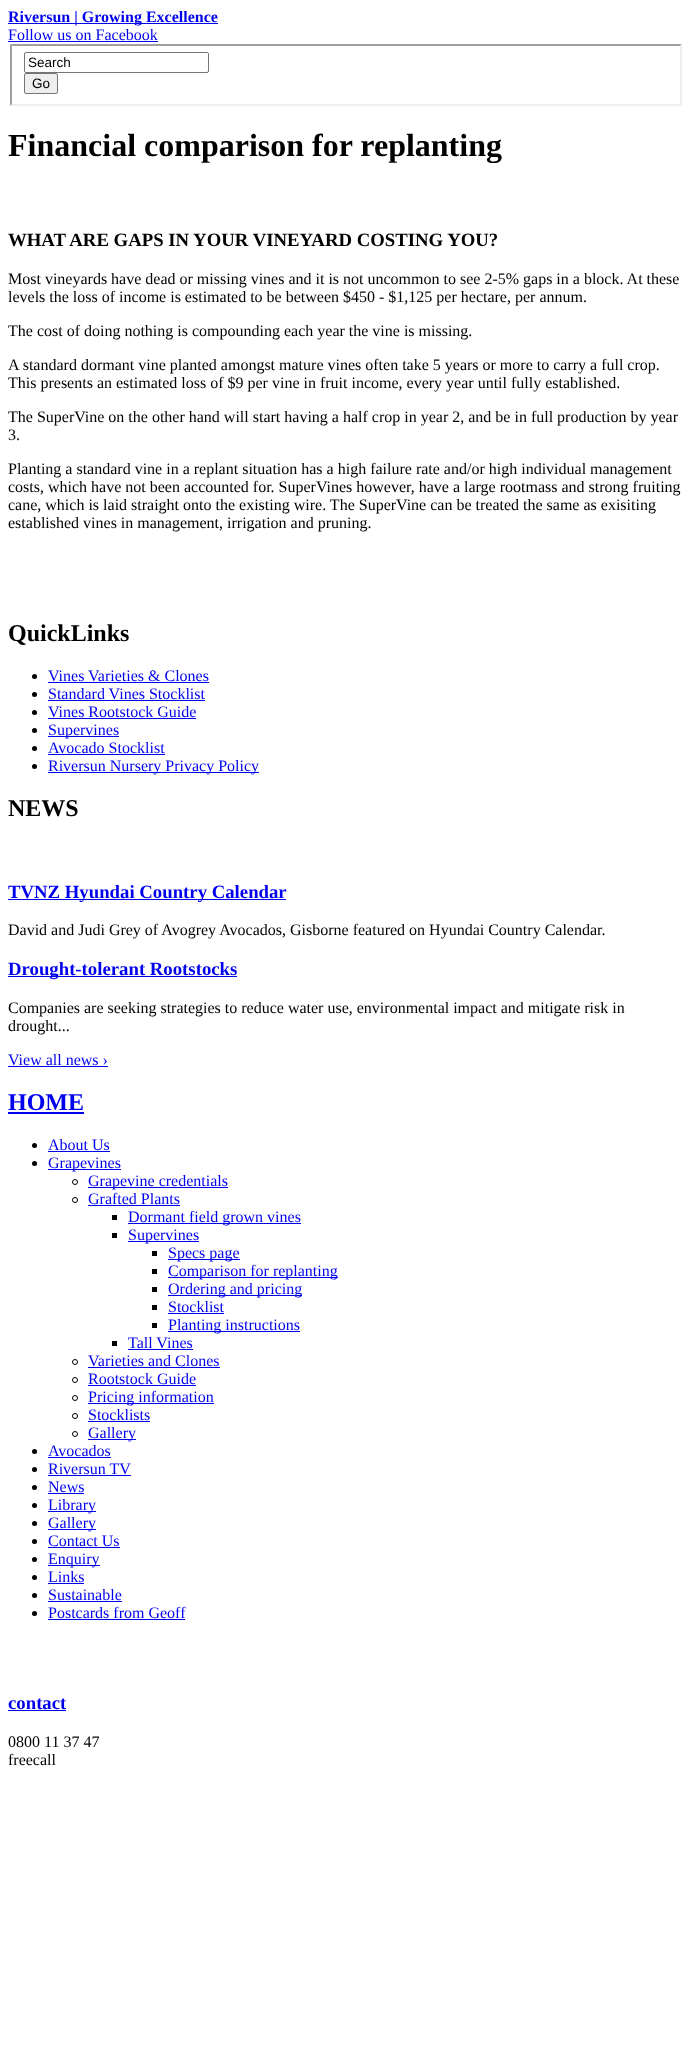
async function draw(canvas) {
  canvas.width = 692
  canvas.height = 2056
  const ctx = canvas.getContext('2d')
  ctx.miterLimit = 4
  ctx.fontKerning = 'normal'

  ctx.fillStyle = '#fff'
  ctx.fillRect(0, 0, 692, 2056)
  ctx.fillStyle = '#00e'
  ctx.fillRect(8, 23, 210, 1)
  ctx.font = 'bold 16px Liberation Serif'
  ctx.fillText('Riversun | Growing Excellence', 8, 22)
  ctx.font = '16px Liberation Serif'
  ctx.fillText('Follow us on Facebook', 8, 40)
  ctx.fillRect(8, 41, 150, 1)
  ctx.fillStyle = '#9f9f9f'
  ctx.beginPath()
  ctx.moveTo(10, 44)
  ctx.lineTo(682, 44)
  ctx.lineTo(680, 46)
  ctx.lineTo(12, 46)
  ctx.closePath()
  ctx.fill()
  ctx.fillStyle = '#efefef'
  ctx.beginPath()
  ctx.moveTo(682, 44)
  ctx.lineTo(682, 106)
  ctx.lineTo(680, 104)
  ctx.lineTo(680, 46)
  ctx.closePath()
  ctx.fill()
  ctx.beginPath()
  ctx.moveTo(682, 106)
  ctx.lineTo(10, 106)
  ctx.lineTo(12, 104)
  ctx.lineTo(680, 104)
  ctx.closePath()
  ctx.fill()
  ctx.fillStyle = '#9f9f9f'
  ctx.beginPath()
  ctx.moveTo(10, 106)
  ctx.lineTo(10, 44)
  ctx.lineTo(12, 46)
  ctx.lineTo(12, 104)
  ctx.closePath()
  ctx.fill()
  ctx.beginPath()
  ctx.roundRect(24.5, 52.5, 184, 20, 1.5)
  ctx.strokeStyle = '#767676'
  ctx.stroke()
  ctx.font = '13.5px Liberation Sans'
  ctx.fillStyle = '#000'
  ctx.fillText('Search', 28, 67)
  ctx.fillStyle = '#efefef'
  ctx.beginPath()
  ctx.roundRect(24.5, 73.5, 33, 20, 1.5)
  ctx.fill()
  ctx.stroke()
  ctx.fillStyle = '#000'
  ctx.fillText('Go', 32, 88)
  ctx.font = 'bold 32px Liberation Serif'
  ctx.fillText('Financial comparison for replanting', 8, 156)
  ctx.font = 'bold 18.75px Liberation Serif'
  ctx.fillText('WHAT ARE GAPS IN YOUR VINEYARD COSTING YOU?', 8, 246)
  ctx.font = '16px Liberation Serif'
  ctx.fillText('Most vineyards have dead or missing vines and it is not uncommon to see 2-5% gaps in a block. At these', 8, 284)
  ctx.fillText('levels the loss of income is estimated to be between $450 - $1,125 per hectare, per annum.', 8, 302)
  ctx.fillText('The cost of doing nothing is compounding each year the vine is missing.', 8, 336)
  ctx.fillText('A standard dormant vine planted amongst mature vines often take 5 years or more to carry a full crop.', 8, 370)
  ctx.fillText('This presents an estimated loss of $9 per vine in fruit income, every year until fully established.', 8, 388)
  ctx.fillText('The SuperVine on the other hand will start having a half crop in year 2, and be in full production by year', 8, 422)
  ctx.fillText('3.', 8, 440)
  ctx.fillText('Planting a standard vine in a replant situation has a high failure rate and/or high individual management', 8, 474)
  ctx.fillText('costs, which have not been accounted for. SuperVines however, have a large rootmass and strong fruiting', 8, 492)
  ctx.fillText('cane, which is laid straight onto the existing wire. The SuperVine can be treated the same as exisiting', 8, 510)
  ctx.fillText('established vines in management, irrigation and pruning.', 8, 528)
  ctx.font = 'bold 24px Liberation Serif'
  ctx.fillText('QuickLinks', 8, 641)
  ctx.beginPath()
  ctx.arc(34.5, 676.5, 2.5, 0, 2 * Math.PI)
  ctx.fill()
  ctx.font = '16px Liberation Serif'
  ctx.fillStyle = '#00e'
  ctx.fillText('Vines Varieties & Clones', 48, 681)
  ctx.fillRect(48, 682, 161, 1)
  ctx.fillStyle = '#000'
  ctx.beginPath()
  ctx.arc(34.5, 694.5, 2.5, 0, 2 * Math.PI)
  ctx.fill()
  ctx.fillStyle = '#00e'
  ctx.fillText('Standard Vines Stocklist', 48, 699)
  ctx.fillRect(48, 700, 157, 1)
  ctx.fillStyle = '#000'
  ctx.beginPath()
  ctx.arc(34.5, 712.5, 2.5, 0, 2 * Math.PI)
  ctx.fill()
  ctx.fillStyle = '#00e'
  ctx.fillText('Vines Rootstock Guide', 48, 717)
  ctx.fillRect(48, 718, 148, 1)
  ctx.fillStyle = '#000'
  ctx.beginPath()
  ctx.arc(34.5, 730.5, 2.5, 0, 2 * Math.PI)
  ctx.fill()
  ctx.fillStyle = '#00e'
  ctx.fillRect(48, 736, 71, 1)
  ctx.fillText('Supervines', 48, 735)
  ctx.fillStyle = '#000'
  ctx.beginPath()
  ctx.arc(34.5, 748.5, 2.5, 0, 2 * Math.PI)
  ctx.fill()
  ctx.fillStyle = '#00e'
  ctx.fillText('Avocado Stocklist', 48, 753)
  ctx.fillRect(48, 754, 117, 1)
  ctx.fillStyle = '#000'
  ctx.beginPath()
  ctx.arc(34.5, 766.5, 2.5, 0, 2 * Math.PI)
  ctx.fill()
  ctx.fillStyle = '#00e'
  ctx.fillRect(48, 772, 211, 1)
  ctx.fillText('Riversun Nursery Privacy Policy', 48, 771)
  ctx.font = 'bold 24px Liberation Serif'
  ctx.fillStyle = '#000'
  ctx.fillText('NEWS', 8, 816)
  ctx.fillStyle = '#00e'
  ctx.fillRect(8, 899, 278, 1)
  ctx.font = 'bold 18.75px Liberation Serif'
  ctx.fillText('TVNZ Hyundai Country Calendar', 8, 898)
  ctx.font = '16px Liberation Serif'
  ctx.fillStyle = '#000'
  ctx.fillText('David and Judi Grey of Avogrey Avocados, Gisborne featured on Hyundai Country Calendar.', 8, 935)
  ctx.fillStyle = '#00e'
  ctx.fillRect(8, 976, 229, 1)
  ctx.font = 'bold 18.75px Liberation Serif'
  ctx.fillText('Drought-tolerant Rootstocks', 8, 975)
  ctx.font = '16px Liberation Serif'
  ctx.fillStyle = '#000'
  ctx.fillText('Companies are seeking strategies to reduce water use, environmental impact and mitigate risk in', 8, 1013)
  ctx.fillText('drought...', 8, 1031)
  ctx.fillStyle = '#00e'
  ctx.fillText('View all news ›', 8, 1065)
  ctx.fillRect(8, 1066, 100, 1)
  ctx.font = 'bold 24px Liberation Serif'
  ctx.fillText('HOME', 8, 1110)
  ctx.fillRect(8, 1112, 76, 2)
  ctx.fillStyle = '#000'
  ctx.beginPath()
  ctx.arc(34.5, 1145.5, 2.5, 0, 2 * Math.PI)
  ctx.fill()
  ctx.font = '16px Liberation Serif'
  ctx.fillStyle = '#00e'
  ctx.fillText('About Us', 48, 1150)
  ctx.fillRect(48, 1151, 62, 1)
  ctx.fillStyle = '#000'
  ctx.beginPath()
  ctx.arc(34.5, 1163.5, 2.5, 0, 2 * Math.PI)
  ctx.fill()
  ctx.fillStyle = '#00e'
  ctx.fillRect(48, 1169, 73, 1)
  ctx.fillText('Grapevines', 48, 1168)
  ctx.beginPath()
  ctx.arc(75, 1182, 2.5, 0, 2 * Math.PI)
  ctx.strokeStyle = '#000'
  ctx.stroke()
  ctx.fillRect(88, 1187, 140, 1)
  ctx.fillText('Grapevine credentials', 88, 1186)
  ctx.beginPath()
  ctx.arc(75, 1200, 2.5, 0, 2 * Math.PI)
  ctx.stroke()
  ctx.fillText('Grafted Plants', 88, 1204)
  ctx.fillRect(88, 1205, 92, 1)
  ctx.fillStyle = '#000'
  ctx.fillRect(112, 1215, 5, 5)
  ctx.fillStyle = '#00e'
  ctx.fillRect(128, 1223, 173, 1)
  ctx.fillText('Dormant field grown vines', 128, 1222)
  ctx.fillStyle = '#000'
  ctx.fillRect(112, 1233, 5, 5)
  ctx.fillStyle = '#00e'
  ctx.fillRect(128, 1241, 71, 1)
  ctx.fillText('Supervines', 128, 1240)
  ctx.fillStyle = '#000'
  ctx.fillRect(152, 1251, 5, 5)
  ctx.fillStyle = '#00e'
  ctx.fillRect(168, 1259, 72, 1)
  ctx.fillText('Specs page', 168, 1258)
  ctx.fillStyle = '#000'
  ctx.fillRect(152, 1269, 5, 5)
  ctx.fillStyle = '#00e'
  ctx.fillRect(168, 1277, 170, 1)
  ctx.fillText('Comparison for replanting', 168, 1276)
  ctx.fillStyle = '#000'
  ctx.fillRect(152, 1287, 5, 5)
  ctx.fillStyle = '#00e'
  ctx.fillRect(168, 1295, 134, 1)
  ctx.fillText('Ordering and pricing', 168, 1294)
  ctx.fillStyle = '#000'
  ctx.fillRect(152, 1305, 5, 5)
  ctx.fillStyle = '#00e'
  ctx.fillText('Stocklist', 168, 1312)
  ctx.fillRect(168, 1313, 56, 1)
  ctx.fillStyle = '#000'
  ctx.fillRect(152, 1323, 5, 5)
  ctx.fillStyle = '#00e'
  ctx.fillRect(168, 1331, 132, 1)
  ctx.fillText('Planting instructions', 168, 1330)
  ctx.fillStyle = '#000'
  ctx.fillRect(112, 1341, 5, 5)
  ctx.fillStyle = '#00e'
  ctx.fillText('Tall Vines', 128, 1348)
  ctx.fillRect(128, 1349, 65, 1)
  ctx.beginPath()
  ctx.arc(75, 1362, 2.5, 0, 2 * Math.PI)
  ctx.stroke()
  ctx.fillText('Varieties and Clones', 88, 1366)
  ctx.fillRect(88, 1367, 132, 1)
  ctx.beginPath()
  ctx.arc(75, 1380, 2.5, 0, 2 * Math.PI)
  ctx.stroke()
  ctx.fillText('Rootstock Guide', 88, 1384)
  ctx.fillRect(88, 1385, 108, 1)
  ctx.beginPath()
  ctx.arc(75, 1398, 2.5, 0, 2 * Math.PI)
  ctx.stroke()
  ctx.fillRect(88, 1403, 126, 1)
  ctx.fillText('Pricing information', 88, 1402)
  ctx.beginPath()
  ctx.arc(75, 1416, 2.5, 0, 2 * Math.PI)
  ctx.stroke()
  ctx.fillText('Stocklists', 88, 1420)
  ctx.fillRect(88, 1421, 62, 1)
  ctx.beginPath()
  ctx.arc(75, 1434, 2.5, 0, 2 * Math.PI)
  ctx.stroke()
  ctx.fillRect(88, 1439, 48, 1)
  ctx.fillText('Gallery', 88, 1438)
  ctx.fillStyle = '#000'
  ctx.beginPath()
  ctx.arc(34.5, 1451.5, 2.5, 0, 2 * Math.PI)
  ctx.fill()
  ctx.fillStyle = '#00e'
  ctx.fillText('Avocados', 48, 1456)
  ctx.fillRect(48, 1457, 63, 1)
  ctx.fillStyle = '#000'
  ctx.beginPath()
  ctx.arc(34.5, 1469.5, 2.5, 0, 2 * Math.PI)
  ctx.fill()
  ctx.fillStyle = '#00e'
  ctx.fillText('Riversun TV', 48, 1474)
  ctx.fillRect(48, 1475, 83, 1)
  ctx.fillStyle = '#000'
  ctx.beginPath()
  ctx.arc(34.5, 1487.5, 2.5, 0, 2 * Math.PI)
  ctx.fill()
  ctx.fillStyle = '#00e'
  ctx.fillText('News', 48, 1492)
  ctx.fillRect(48, 1493, 36, 1)
  ctx.fillStyle = '#000'
  ctx.beginPath()
  ctx.arc(34.5, 1505.5, 2.5, 0, 2 * Math.PI)
  ctx.fill()
  ctx.fillStyle = '#00e'
  ctx.fillRect(48, 1511, 48, 1)
  ctx.fillText('Library', 48, 1510)
  ctx.fillStyle = '#000'
  ctx.beginPath()
  ctx.arc(34.5, 1523.5, 2.5, 0, 2 * Math.PI)
  ctx.fill()
  ctx.fillStyle = '#00e'
  ctx.fillRect(48, 1529, 48, 1)
  ctx.fillText('Gallery', 48, 1528)
  ctx.fillStyle = '#000'
  ctx.beginPath()
  ctx.arc(34.5, 1541.5, 2.5, 0, 2 * Math.PI)
  ctx.fill()
  ctx.fillStyle = '#00e'
  ctx.fillText('Contact Us', 48, 1546)
  ctx.fillRect(48, 1547, 72, 1)
  ctx.fillStyle = '#000'
  ctx.beginPath()
  ctx.arc(34.5, 1559.5, 2.5, 0, 2 * Math.PI)
  ctx.fill()
  ctx.fillStyle = '#00e'
  ctx.fillRect(48, 1565, 52, 1)
  ctx.fillText('Enquiry', 48, 1564)
  ctx.fillStyle = '#000'
  ctx.beginPath()
  ctx.arc(34.5, 1577.5, 2.5, 0, 2 * Math.PI)
  ctx.fill()
  ctx.fillStyle = '#00e'
  ctx.fillText('Links', 48, 1582)
  ctx.fillRect(48, 1583, 36, 1)
  ctx.fillStyle = '#000'
  ctx.beginPath()
  ctx.arc(34.5, 1595.5, 2.5, 0, 2 * Math.PI)
  ctx.fill()
  ctx.fillStyle = '#00e'
  ctx.fillText('Sustainable', 48, 1600)
  ctx.fillRect(48, 1601, 74, 1)
  ctx.fillStyle = '#000'
  ctx.beginPath()
  ctx.arc(34.5, 1613.5, 2.5, 0, 2 * Math.PI)
  ctx.fill()
  ctx.fillStyle = '#00e'
  ctx.fillText('Postcards from Geoff', 48, 1618)
  ctx.fillRect(48, 1619, 137, 1)
  ctx.font = 'bold 18.75px Liberation Serif'
  ctx.fillText('contact', 8, 1709)
  ctx.fillRect(8, 1710, 58, 1)
  ctx.font = '16px Liberation Serif'
  ctx.fillStyle = '#000'
  ctx.fillText('0800 11 37 47', 8, 1747)
  ctx.fillText('freecall', 8, 1765)
}

draw(document.querySelector('canvas'))
